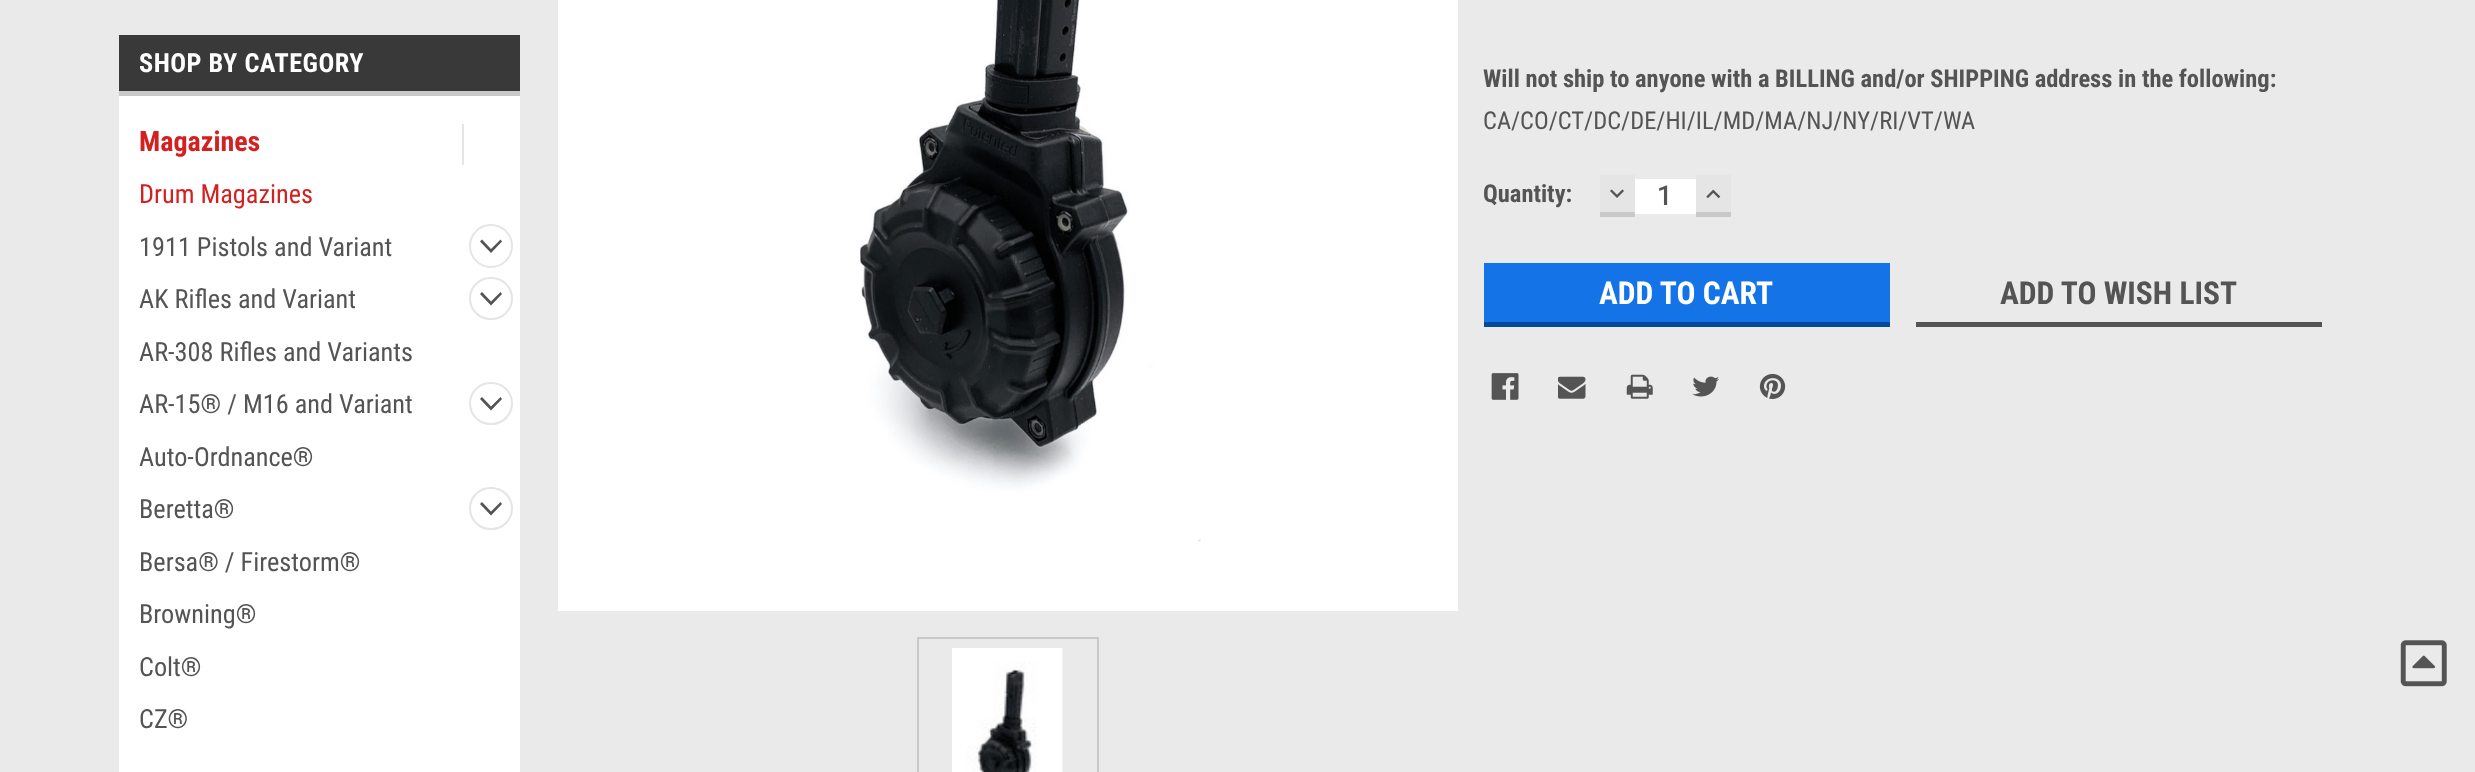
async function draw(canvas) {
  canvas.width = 2475
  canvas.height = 772
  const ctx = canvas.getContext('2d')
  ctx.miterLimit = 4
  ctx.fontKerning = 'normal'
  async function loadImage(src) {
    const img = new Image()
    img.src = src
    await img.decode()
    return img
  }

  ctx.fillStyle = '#eaeaea'
  ctx.fillRect(0, 0, 2475, 772)
  ctx.fillStyle = '#393939'
  ctx.fillRect(119, 35, 401, 56)
  ctx.fillStyle = '#c9c9c9'
  ctx.fillRect(119, 91, 408, 5)
  ctx.letterSpacing = '0.5px'
  ctx.font = 'bold 26.25px Roboto Condensed'
  ctx.fillStyle = '#fff'
  ctx.fillText('SHOP BY CATEGORY', 139, 72)
  ctx.fillRect(119, 96, 401, 676)
  ctx.letterSpacing = '0px'
  ctx.font = 'bold 28px Roboto Condensed'
  ctx.fillStyle = '#d42020'
  ctx.fillText('Magazines', 139, 151)
  ctx.fillStyle = '#e5e5e5'
  ctx.fillRect(462, 124, 2, 41)
  ctx.font = '26.25px Roboto Condensed'
  ctx.fillStyle = '#d42020'
  ctx.fillText('Drum Magazines', 139, 203)
  ctx.fillStyle = '#545454'
  ctx.fillText('1911 Pistols and Variant', 139, 256)
  ctx.beginPath()
  ctx.arc(491, 246, 21, 0, 2 * Math.PI)
  ctx.strokeStyle = '#e5e5e5'
  ctx.lineWidth = 2
  ctx.stroke()
  ctx.beginPath()
  ctx.moveTo(502, 241.5)
  ctx.lineTo(491, 253)
  ctx.lineTo(480, 241.5)
  ctx.lineTo(482, 239.5)
  ctx.lineTo(491, 249)
  ctx.lineTo(500.5, 239.5)
  ctx.closePath()
  ctx.fill()
  ctx.fillText('AK Rifles and Variant', 139, 308)
  ctx.beginPath()
  ctx.roundRect(470, 278, 42, 41, 20.5)
  ctx.stroke()
  ctx.beginPath()
  ctx.moveTo(502, 294)
  ctx.lineTo(491, 305.5)
  ctx.lineTo(480, 294)
  ctx.lineTo(482, 292)
  ctx.lineTo(491, 301.5)
  ctx.lineTo(500.5, 292)
  ctx.closePath()
  ctx.fill()
  ctx.fillText('AR-308 Rifles and Variants', 139, 361)
  ctx.fillText('AR-15® / M16 and Variant', 139, 413)
  ctx.beginPath()
  ctx.roundRect(470, 383, 42, 41, 20.5)
  ctx.stroke()
  ctx.beginPath()
  ctx.moveTo(502, 399)
  ctx.lineTo(491, 410.5)
  ctx.lineTo(480, 399)
  ctx.lineTo(482, 397)
  ctx.lineTo(491, 406.5)
  ctx.lineTo(500.5, 397)
  ctx.closePath()
  ctx.fill()
  ctx.fillText('Auto-Ordnance®', 139, 466)
  ctx.fillText('Beretta®', 139, 518)
  ctx.beginPath()
  ctx.roundRect(470, 488, 42, 41, 20.5)
  ctx.stroke()
  ctx.beginPath()
  ctx.moveTo(502, 504)
  ctx.lineTo(491, 515.5)
  ctx.lineTo(480, 504)
  ctx.lineTo(482, 502)
  ctx.lineTo(491, 511.5)
  ctx.lineTo(500.5, 502)
  ctx.closePath()
  ctx.fill()
  ctx.fillText('Bersa® / Firestorm®', 139, 571)
  ctx.fillText('Browning®', 139, 623)
  ctx.fillText('Colt®', 139, 676)
  ctx.fillText('CZ®', 139, 728)
  ctx.fillStyle = '#eaeaea'
  ctx.fillRect(520, 91, 7, 5)
  ctx.fillStyle = '#fff'
  ctx.fillRect(558, 0, 900, 611)
  ctx.drawImage(await loadImage('image0.png'), 860, 0, 341, 542)
  ctx.strokeStyle = '#c9c9c9'
  ctx.strokeRect(918, 638, 180, 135)
  ctx.drawImage(await loadImage('image1.png'), 952, 648, 111, 124)
  ctx.font = 'bold 24.5px Roboto Condensed'
  ctx.fillStyle = '#545454'
  ctx.fillText('Will not ship to anyone with a BILLING and/or SHIPPING address in the following:', 1483, 87)
  ctx.font = '24.5px Roboto Condensed'
  ctx.fillText('CA/CO/CT/DC/DE/HI/IL/MD/MA/NJ/NY/RI/VT/WA', 1483, 129)
  ctx.font = 'bold 24.5px Roboto Condensed'
  ctx.fillText('Quantity:', 1483, 202)
  ctx.fillStyle = '#e5e5e5'
  ctx.fillRect(1600, 175, 35, 37)
  ctx.fillStyle = '#c9c9c9'
  ctx.fillRect(1600, 212, 35, 5)
  ctx.drawImage(await loadImage('image2.png'), 1610, 189, 14, 9)
  ctx.fillStyle = '#fff'
  ctx.fillRect(1635, 179, 61, 35)
  ctx.font = 'bold 26.25px Roboto'
  ctx.fillStyle = '#545454'
  ctx.fillText('1', 1657, 205)
  ctx.fillStyle = '#e5e5e5'
  ctx.fillRect(1696, 175, 35, 37)
  ctx.fillStyle = '#c9c9c9'
  ctx.fillRect(1696, 212, 35, 5)
  ctx.drawImage(await loadImage('image3.png'), 1706, 189, 15, 10)
  ctx.fillStyle = '#1473e6'
  ctx.fillRect(1484, 263, 406, 59)
  ctx.fillStyle = '#074999'
  ctx.fillRect(1484, 322, 406, 5)
  ctx.font = 'bold 31.5px Roboto Condensed'
  ctx.fillStyle = '#fff'
  ctx.fillText('ADD TO CART', 1599, 304)
  ctx.fillStyle = '#545454'
  ctx.fillRect(1916, 322, 406, 5)
  ctx.fillText('ADD TO WISH LIST', 2000, 304)
  ctx.drawImage(await loadImage('image4.png'), 1491, 373, 28, 27)
  ctx.drawImage(await loadImage('image5.png'), 1558, 376, 28, 23)
  ctx.drawImage(await loadImage('image6.png'), 1626, 374, 27, 25)
  ctx.drawImage(await loadImage('image7.png'), 1692, 376, 27, 21)
  ctx.drawImage(await loadImage('image8.png'), 1759, 373, 27, 26)
  ctx.drawImage(await loadImage('image9.png'), 2400, 640, 47, 47)
}

draw(document.querySelector('canvas'))
